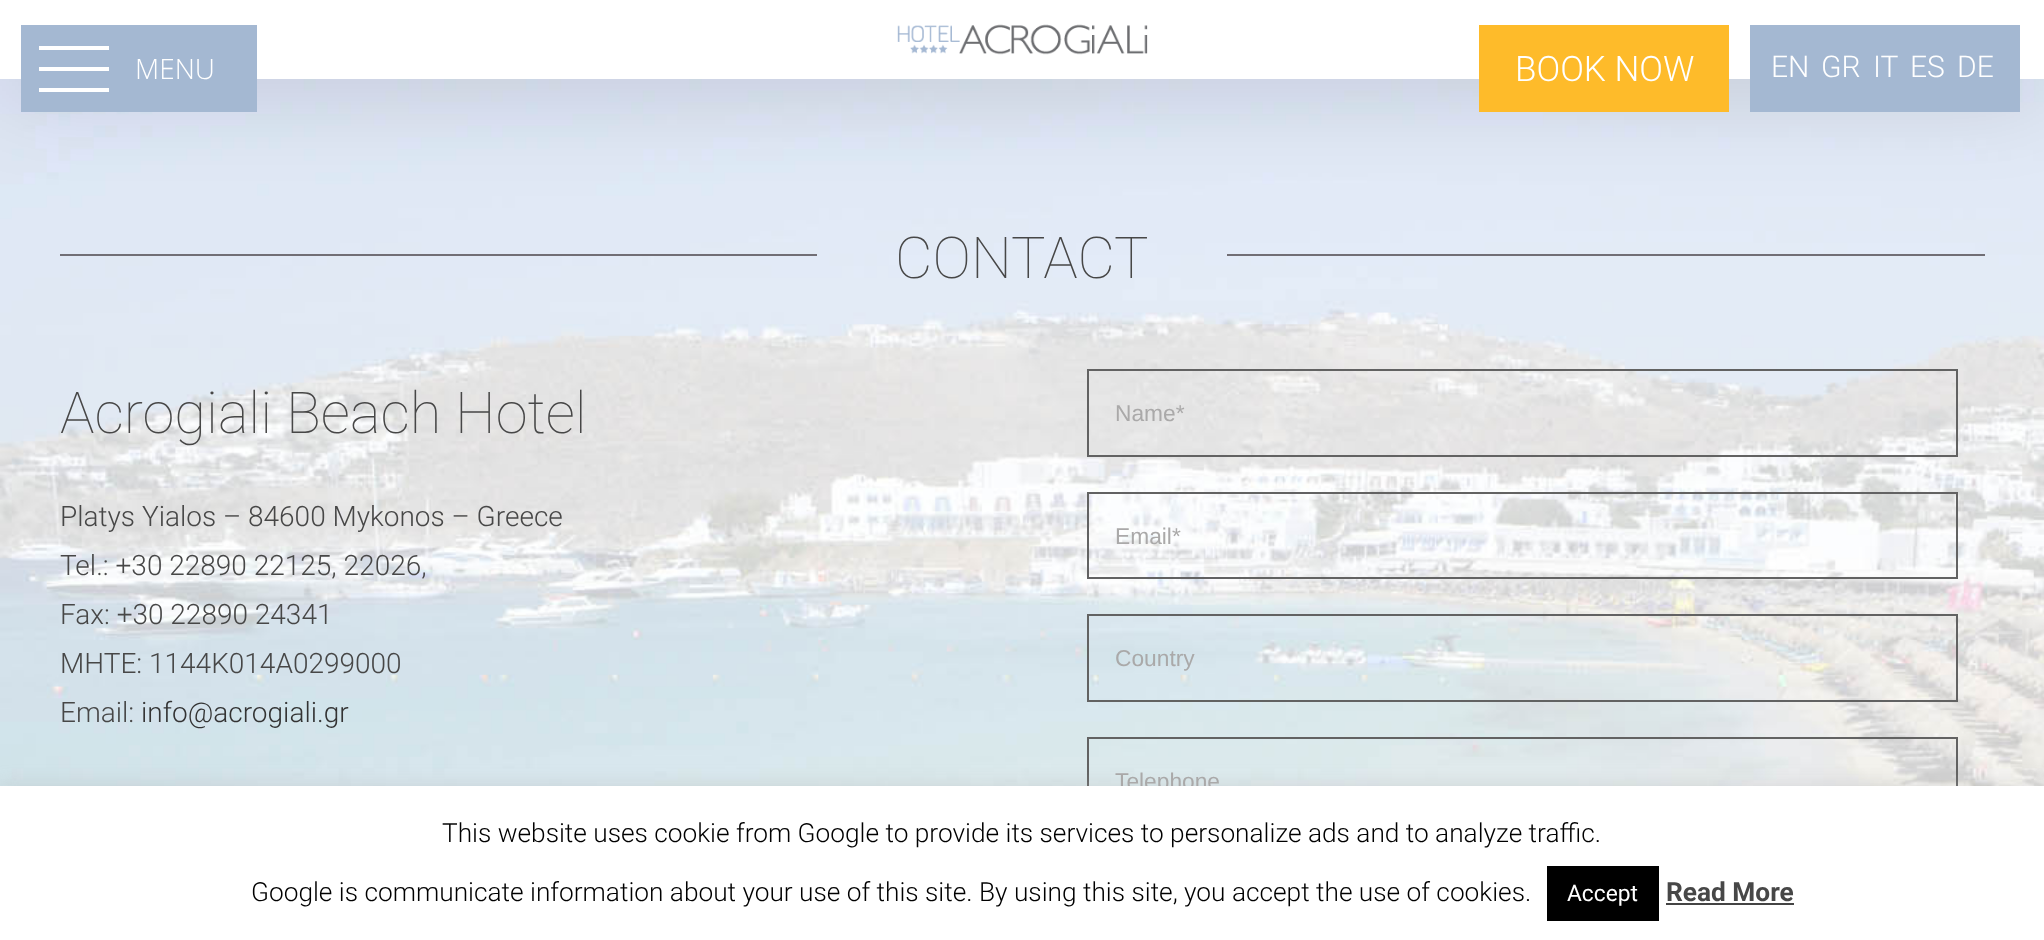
async function draw(canvas) {
  canvas.width = 2044
  canvas.height = 940
  const ctx = canvas.getContext('2d')
  ctx.miterLimit = 4
  ctx.fontKerning = 'normal'
  async function loadImage(src) {
    const img = new Image()
    img.src = src
    await img.decode()
    return img
  }

  ctx.fillStyle = '#fff'
  ctx.fillRect(0, 0, 2044, 940)
  ctx.drawImage(await loadImage('image1.png'), 0, 79, 2044, 707)
  ctx.fillStyle = '#00000024'
  ctx.filter = 'blur(44px)'
  ctx.beginPath()
  ctx.rect(4, 21, 2037, 72)
  ctx.fill()
  ctx.filter = 'none'
  ctx.fillStyle = '#fff'
  ctx.fillRect(0, 0, 2044, 79)
  ctx.fillStyle = '#a4b8d2'
  ctx.fillRect(21, 25, 236, 87)
  ctx.fillStyle = '#fff'
  ctx.fillRect(39, 46, 70, 4)
  ctx.fillRect(39, 67, 70, 4)
  ctx.font = '300 28px Open Sans'
  ctx.fillText('MENU', 135, 79)
  ctx.fillRect(39, 88, 70, 4)
  ctx.fillStyle = '#febb2a'
  ctx.fillRect(1479, 25, 250, 87)
  ctx.font = '300 35px Roboto'
  ctx.fillStyle = '#fff'
  ctx.fillText('BOOK NOW', 1515, 81)
  ctx.fillStyle = '#a4b8d2'
  ctx.fillRect(1750, 25, 270, 87)
  ctx.font = '300 30px Roboto'
  ctx.fillStyle = '#fff'
  ctx.fillText('EN', 1771, 77)
  ctx.fillText('GR', 1821, 77)
  ctx.fillText('IT', 1873, 77)
  ctx.fillText('ES', 1910, 77)
  ctx.fillText('DE', 1957, 77)
  ctx.drawImage(await loadImage('image0.png'), 897, 24, 251, 31)
  ctx.fillStyle = '#716e75'
  ctx.fillRect(60, 254, 757, 2)
  ctx.font = '100 57.75px Roboto'
  ctx.fillStyle = '#474747'
  ctx.fillText('CONTACT', 895, 278)
  ctx.fillStyle = '#716e75'
  ctx.fillRect(1227, 254, 758, 2)
  ctx.fillStyle = '#474747'
  ctx.fillText('Acrogiali Beach Hotel', 60, 433)
  ctx.font = '300 28px Roboto'
  ctx.fillText('Platys Yialos – 84600 Mykonos – Greece', 60, 526)
  ctx.fillText('Tel.: +30 22890 22125, 22026,', 60, 575)
  ctx.fillText('Fax: +30 22890 24341', 60, 624)
  ctx.fillText('MHTE: 1144Κ014Α0299000', 60, 673)
  ctx.fillText('Email:', 60, 722)
  ctx.fillStyle = '#333'
  ctx.fillText('info@acrogiali.gr', 141, 722)
  ctx.strokeStyle = '#626262'
  ctx.lineWidth = 2
  ctx.strokeRect(1088, 370, 869, 86)
  ctx.font = '22.75px Liberation Sans'
  ctx.fillStyle = '#aaa9a9'
  ctx.fillText('Name*', 1115, 421)
  ctx.strokeRect(1088, 493, 869, 85)
  ctx.fillText('Email*', 1115, 544)
  ctx.strokeRect(1088, 615, 869, 86)
  ctx.fillText('Country', 1115, 666)
  ctx.strokeRect(1088, 738, 869, 85)
  ctx.fillText('Telephone', 1115, 789)
  ctx.fillStyle = '#acabab4d'
  ctx.filter = 'blur(9px)'
  ctx.beginPath()
  ctx.rect(0, 784, 2044, 156)
  ctx.fill()
  ctx.filter = 'none'
  ctx.fillStyle = '#fff'
  ctx.fillRect(0, 786, 2044, 154)
  ctx.font = '300 26.25px Roboto'
  ctx.fillStyle = '#000'
  ctx.fillText('This website uses cookie from Google to provide its services to personalize ads and to analyze traffic.', 442, 842)
  ctx.fillText('Google is communicate information about your use of this site. By using this site, you accept the use of cookies.', 251, 901)
  ctx.fillRect(1547, 866, 112, 55)
  ctx.font = '22.75px Roboto'
  ctx.fillStyle = '#fff'
  ctx.fillText('Accept', 1567, 901)
  ctx.font = 'bold 26.25px Roboto'
  ctx.fillStyle = '#474747'
  ctx.fillText('Read More', 1666, 901)
  ctx.fillStyle = '#444'
  ctx.fillRect(1666, 903, 128, 2)
}

draw(document.querySelector('canvas'))
